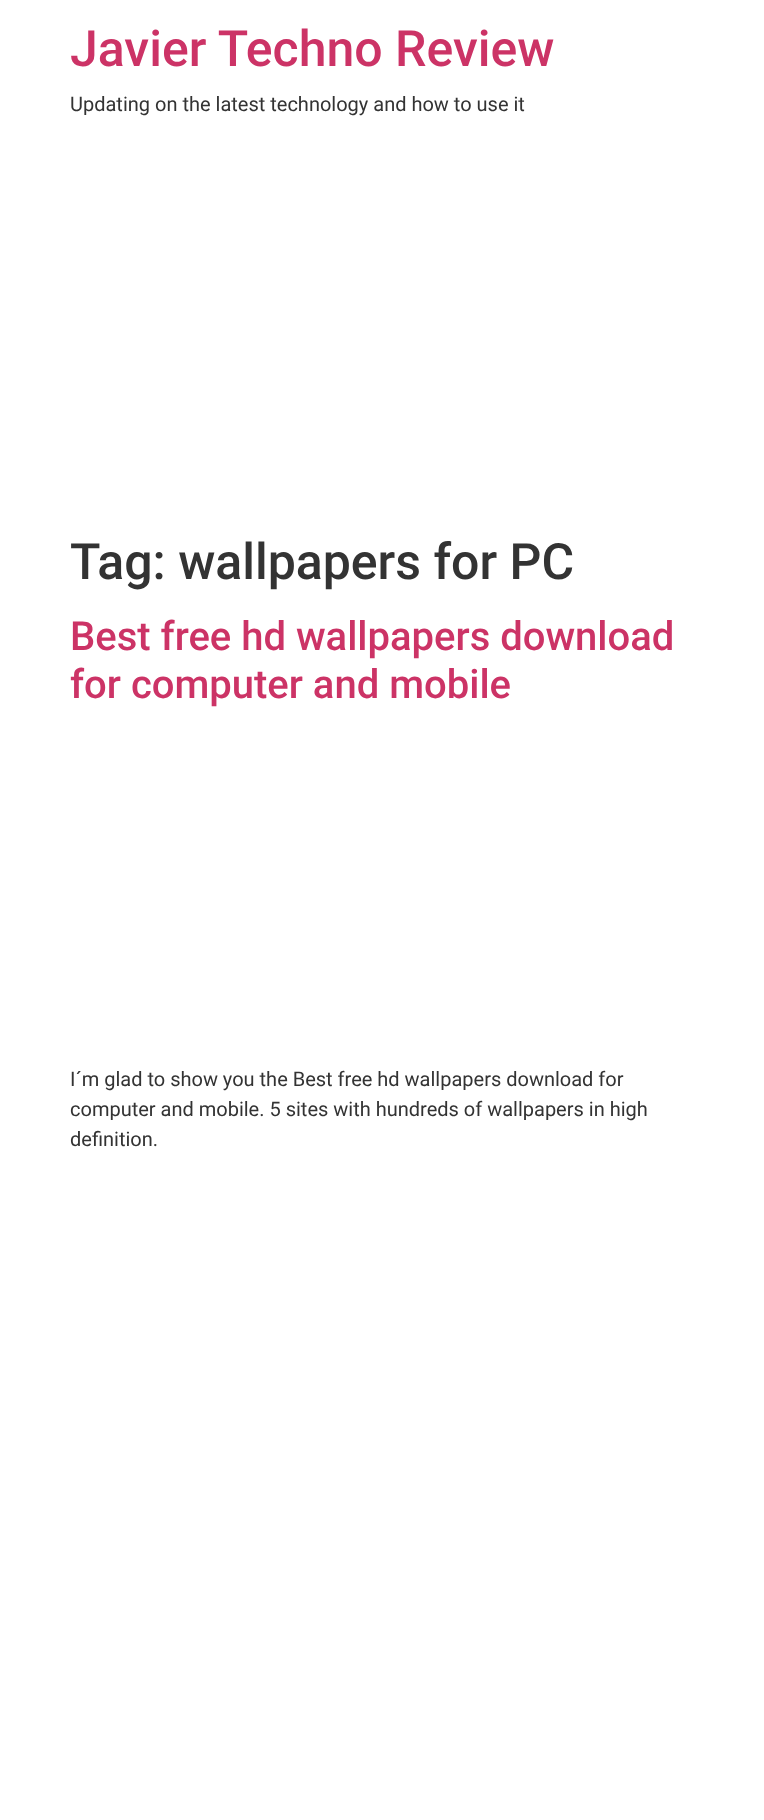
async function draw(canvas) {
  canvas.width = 764
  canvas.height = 1820
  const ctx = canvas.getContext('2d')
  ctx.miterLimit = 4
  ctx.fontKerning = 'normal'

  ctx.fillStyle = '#fff'
  ctx.fillRect(0, 0, 764, 1820)
  ctx.font = '500 50px Roboto'
  ctx.fillStyle = '#c36'
  ctx.fillText('Javier Techno Review', 70, 66)
  ctx.font = '20px Roboto'
  ctx.fillStyle = '#333'
  ctx.fillText('Updating on the latest technology and how to use it', 70, 111)
  ctx.font = '500 50px Roboto'
  ctx.fillText('Tag: wallpapers for PC', 70, 579)
  ctx.font = '500 40px Roboto'
  ctx.fillStyle = '#c36'
  ctx.fillText('Best free hd wallpapers download', 70, 650)
  ctx.fillText('for computer and mobile', 70, 698)
  ctx.font = '20px Roboto'
  ctx.fillStyle = '#333'
  ctx.fillText('I´m glad to show you the Best free hd wallpapers download for', 70, 1086)
  ctx.fillText('computer and mobile. 5 sites with hundreds of wallpapers in high', 70, 1116)
  ctx.fillText('definition.', 70, 1146)
}

draw(document.querySelector('canvas'))
